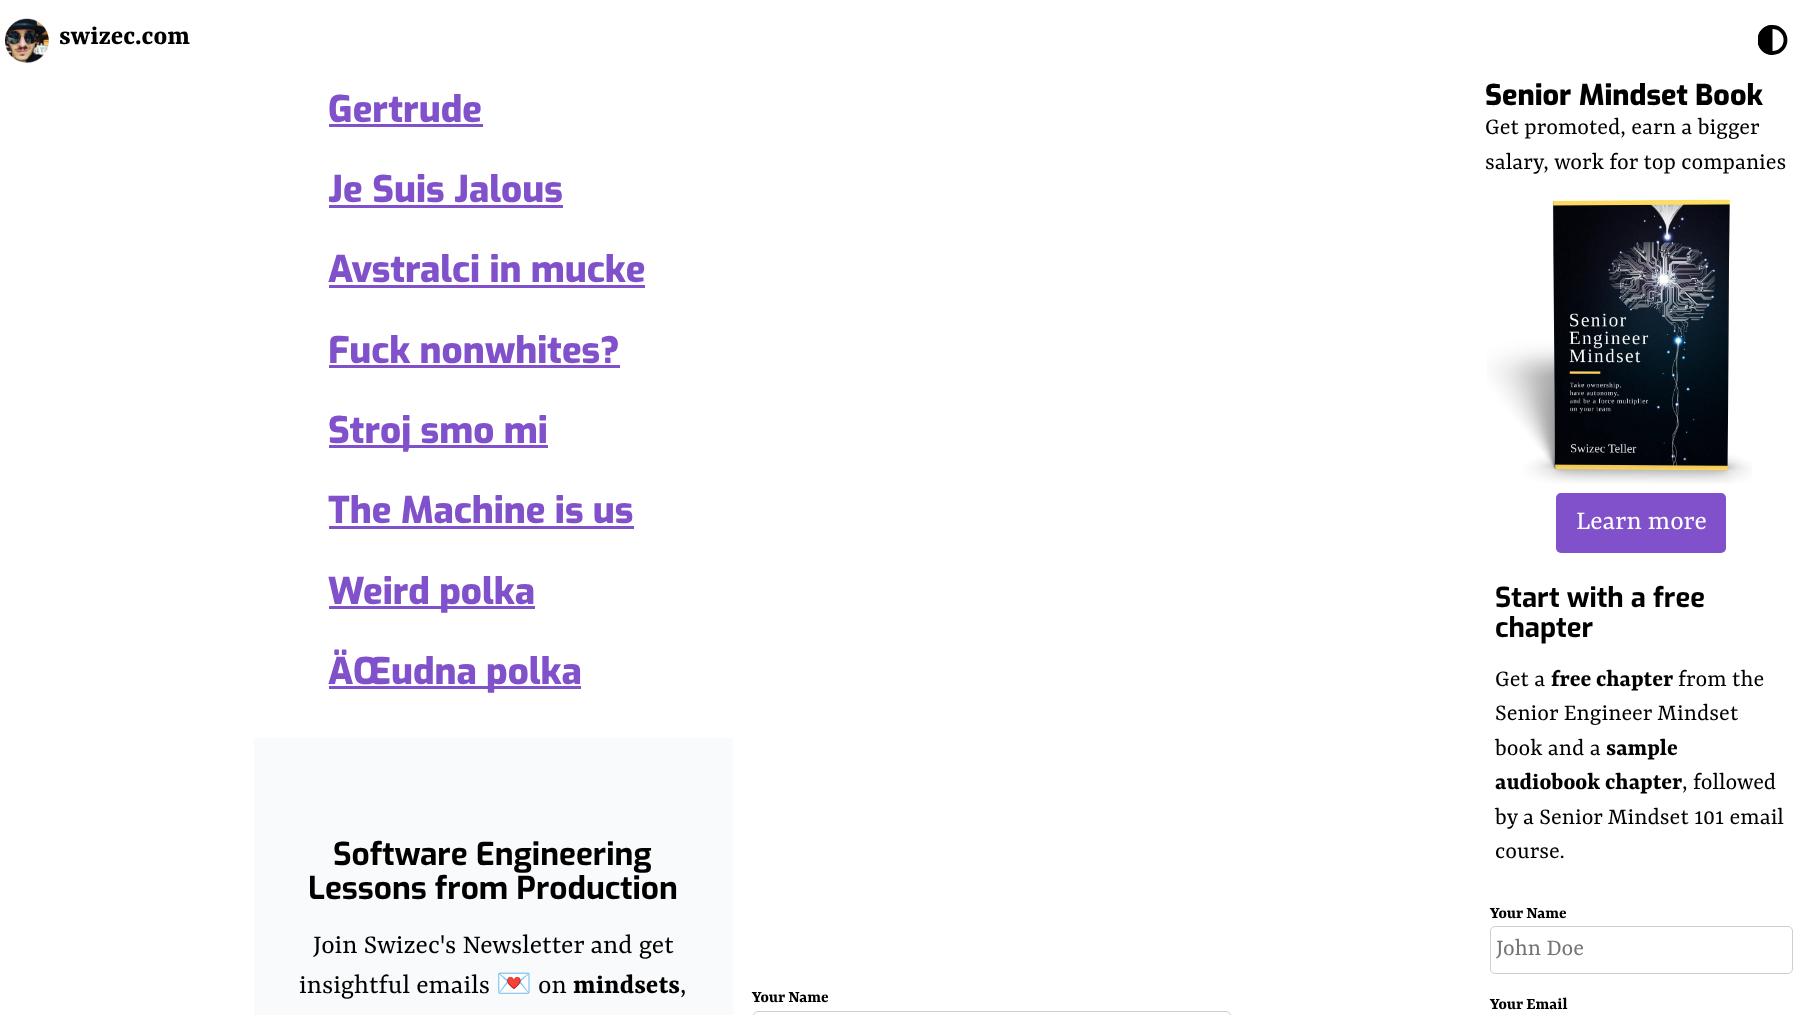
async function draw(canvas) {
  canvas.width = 1797
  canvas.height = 1015
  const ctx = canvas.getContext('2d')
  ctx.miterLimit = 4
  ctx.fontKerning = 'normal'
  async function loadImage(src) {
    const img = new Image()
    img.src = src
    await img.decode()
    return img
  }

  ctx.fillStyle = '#fff'
  ctx.fillRect(0, 0, 1797, 1015)
  ctx.drawImage(await loadImage('image0.png'), 5, 18, 44, 45)
  ctx.font = 'bold 28.75px Yrsa'
  ctx.fillStyle = '#000'
  ctx.fillText('swizec.com', 59, 44)
  ctx.save()
  ctx.beginPath()
  ctx.rect(1758, 25, 30, 30)
  ctx.clip()
  ctx.beginPath()
  ctx.arc(1772.5, 40, 13, 0, 2 * Math.PI)
  ctx.strokeStyle = '#000'
  ctx.lineWidth = 3.8
  ctx.stroke()
  ctx.beginPath()
  ctx.moveTo(1772.5, 25)
  ctx.bezierCurveTo(1764, 25, 1757.5, 31.5, 1757.5, 40)
  ctx.bezierCurveTo(1757.5, 48.5, 1764, 55, 1772.5, 55)
  ctx.closePath()
  ctx.fill()
  ctx.restore()
  ctx.font = '800 36.75px Exo'
  ctx.fillStyle = '#8051cb'
  ctx.fillText('Gertrude', 328, 122)
  ctx.fillRect(329, 124, 154, 3)
  ctx.fillText('Je Suis Jalous', 328, 202)
  ctx.fillRect(329, 205, 234, 3)
  ctx.fillText('Avstralci in mucke', 328, 282)
  ctx.fillRect(329, 285, 316, 3)
  ctx.fillText('Fuck nonwhites?', 328, 363)
  ctx.fillRect(329, 365, 291, 3)
  ctx.fillRect(329, 445, 219, 3)
  ctx.fillText('Stroj smo mi', 328, 443)
  ctx.fillText('The Machine is us', 328, 523)
  ctx.fillRect(329, 526, 305, 3)
  ctx.fillRect(329, 606, 206, 3)
  ctx.fillText('Weird polka', 328, 604)
  ctx.fillRect(329, 686, 252, 3)
  ctx.fillText('ÄŒudna polka', 328, 684)
  ctx.fillStyle = '#f9fafb'
  ctx.fillRect(254, 738, 479, 277)
  ctx.font = 'bold 31.6px Exo'
  ctx.fillStyle = '#000'
  ctx.fillText('Software Engineering', 333, 865)
  ctx.fillText('Lessons from Production', 308, 899)
  ctx.font = '28.75px Yrsa'
  ctx.fillText('Join Swizec\'s Newsletter and get', 313, 953)
  ctx.fillText('insightful emails', 299, 993)
  ctx.font = '28.75px Noto Color Emoji'
  ctx.fillText('💌', 496, 993)
  ctx.font = '28.75px Yrsa'
  ctx.fillText('on', 538, 993)
  ctx.font = 'bold 28.75px Yrsa'
  ctx.fillText('mindsets', 573, 993)
  ctx.font = '28.75px Yrsa'
  ctx.fillText(',', 680, 993)
  ctx.font = 'bold 17.5px Yrsa'
  ctx.fillText('Your Name', 752, 1002)
  ctx.beginPath()
  ctx.roundRect(753.5, 1011.5, 477, 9, 4.5)
  ctx.strokeStyle = '#cfcfd3'
  ctx.stroke()
  ctx.font = '800 28.75px Exo'
  ctx.fillText('Senior Mindset Book', 1485, 105)
  ctx.font = '25px Yrsa'
  ctx.fillText('Get promoted, earn a bigger', 1485, 134)
  ctx.fillText('salary, work for top companies', 1485, 169)
  ctx.drawImage(await loadImage('image1.png'), 1487, 199, 265, 285)
  ctx.fillStyle = '#8051cb'
  ctx.beginPath()
  ctx.roundRect(1556, 493, 170, 60, 5)
  ctx.fill()
  ctx.font = '28.75px Yrsa'
  ctx.fillStyle = '#fff'
  ctx.fillText('Learn more', 1576, 529)
  ctx.font = 'bold 27.5px Exo'
  ctx.fillStyle = '#000'
  ctx.fillText('Start with a free', 1495, 607)
  ctx.fillText('chapter', 1495, 637)
  ctx.font = '25px Yrsa'
  ctx.fillText('Get a', 1495, 686)
  ctx.font = 'bold 25px Yrsa'
  ctx.fillText('free chapter', 1551, 686)
  ctx.font = '25px Yrsa'
  ctx.fillText('from the', 1678, 686)
  ctx.fillText('Senior Engineer Mindset', 1495, 720)
  ctx.fillText('book and a', 1495, 755)
  ctx.font = 'bold 25px Yrsa'
  ctx.fillText('sample', 1606, 755)
  ctx.fillText('audiobook chapter', 1495, 789)
  ctx.font = '25px Yrsa'
  ctx.fillText(', followed', 1682, 789)
  ctx.fillText('by a Senior Mindset 101 email', 1495, 824)
  ctx.fillText('course.', 1495, 858)
  ctx.font = 'bold 17.5px Yrsa'
  ctx.fillText('Your Name', 1490, 918)
  ctx.beginPath()
  ctx.roundRect(1490.5, 926.5, 302, 47, 4.5)
  ctx.stroke()
  ctx.font = '25px Yrsa'
  ctx.fillStyle = '#757575'
  ctx.fillText('John Doe', 1496, 955)
  ctx.font = 'bold 17.5px Yrsa'
  ctx.fillStyle = '#000'
  ctx.fillText('Your Email', 1490, 1009)
}

draw(document.querySelector('canvas'))
